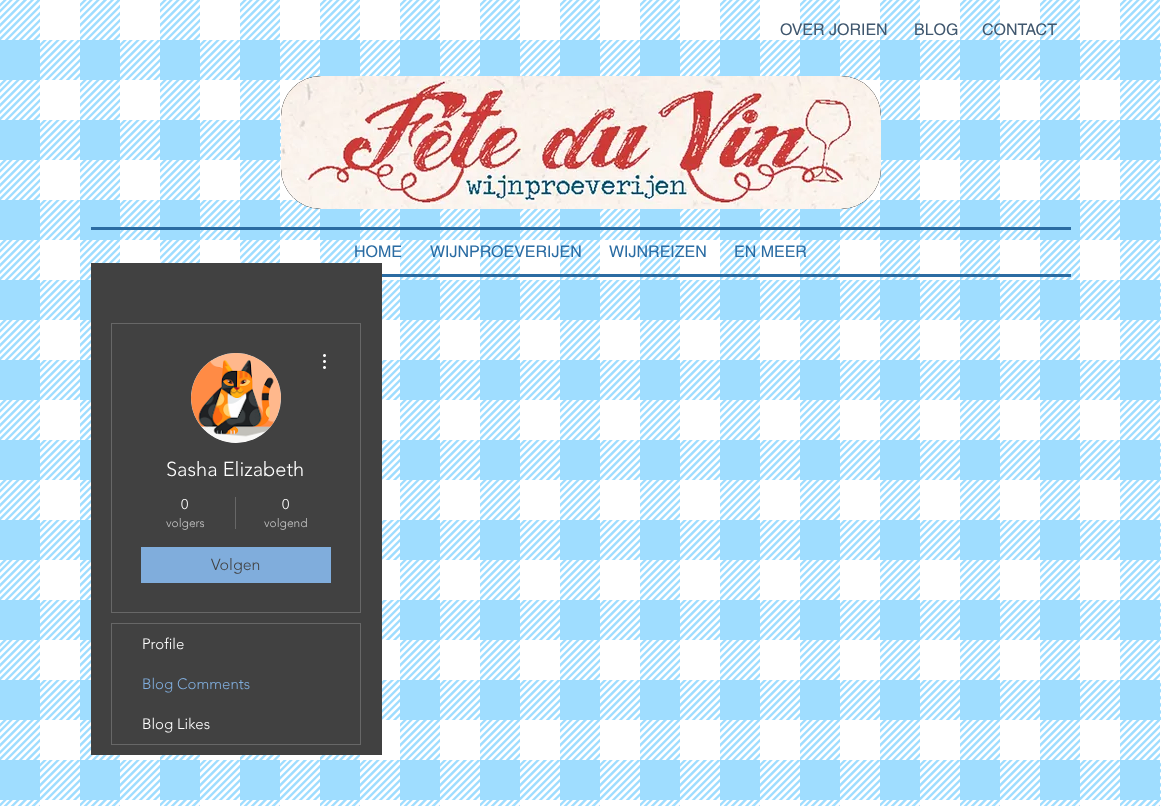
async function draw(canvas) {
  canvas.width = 1161
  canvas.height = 806
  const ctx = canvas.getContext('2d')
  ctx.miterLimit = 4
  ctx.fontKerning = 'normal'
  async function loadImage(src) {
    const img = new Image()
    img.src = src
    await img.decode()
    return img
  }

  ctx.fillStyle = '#fff'
  ctx.fillRect(0, 0, 1161, 806)
  ctx.drawImage(await loadImage('image0.png'), 0, 0, 1161, 806)
  ctx.font = '16px helvetica'
  ctx.fillStyle = '#40576e'
  ctx.fillText('OVER JORIEN', 780, 35)
  ctx.fillText('BLOG', 914, 35)
  ctx.fillText('CONTACT', 982, 35)
  ctx.fillStyle = '#000'
  ctx.beginPath()
  ctx.roundRect(281, 76, 600, 133, 40)
  ctx.fill()
  ctx.drawImage(await loadImage('image1.png'), 281, 76, 600, 133)
  ctx.fillStyle = '#2b6ca3'
  ctx.fillRect(91, 227, 980, 3)
  ctx.fillRect(382, 274, 689, 3)
  ctx.fillText('HOME', 354, 257)
  ctx.fillText('WIJNPROEVERIJEN', 430, 257)
  ctx.fillText('WIJNREIZEN', 609, 257)
  ctx.fillText('EN MEER', 734, 257)
  ctx.fillStyle = '#414141'
  ctx.fillRect(91, 263, 291, 492)
  ctx.strokeStyle = '#676767'
  ctx.strokeRect(111.5, 323.5, 249, 289)
  ctx.fillStyle = '#d8d8d8'
  ctx.beginPath()
  ctx.arc(236, 398, 45, 0, 2 * Math.PI)
  ctx.fill()
  ctx.drawImage(await loadImage('image2.png'), 191, 353, 90, 90)
  ctx.drawImage(await loadImage('image3.png'), 323, 354, 3, 15)
  ctx.font = '300 20px "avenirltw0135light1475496"'
  ctx.fillStyle = '#fff'
  ctx.fillText('Sasha Elizabeth', 166, 476)
  ctx.font = '300 14px "avenirltw0135light1475496"'
  ctx.fillText('0', 181, 509)
  ctx.font = '300 12px "avenirltw0135light1475496"'
  ctx.fillStyle = '#c6c6c6'
  ctx.fillText('volgers', 166, 527)
  ctx.fillStyle = '#676767'
  ctx.fillRect(235, 497, 1, 32)
  ctx.font = '300 14px "avenirltw0135light1475496"'
  ctx.fillStyle = '#fff'
  ctx.fillText('0', 282, 509)
  ctx.font = '300 12px "avenirltw0135light1475496"'
  ctx.fillStyle = '#c6c6c6'
  ctx.fillText('volgend', 264, 527)
  ctx.fillStyle = '#80addc'
  ctx.fillRect(141, 547, 190, 36)
  ctx.font = '300 16px "avenirltw0135light1475496"'
  ctx.fillStyle = '#414141'
  ctx.fillText('Volgen', 211, 570)
  ctx.strokeRect(111.5, 623.5, 249, 121)
  ctx.font = '300 15px "avenirltw0135light1475496"'
  ctx.fillStyle = '#fff'
  ctx.fillText('Profile', 142, 649)
  ctx.fillStyle = '#80addc'
  ctx.fillText('Blog Comments', 142, 689)
  ctx.fillStyle = '#fff'
  ctx.fillText('Blog Likes', 142, 729)
}

draw(document.querySelector('canvas'))
